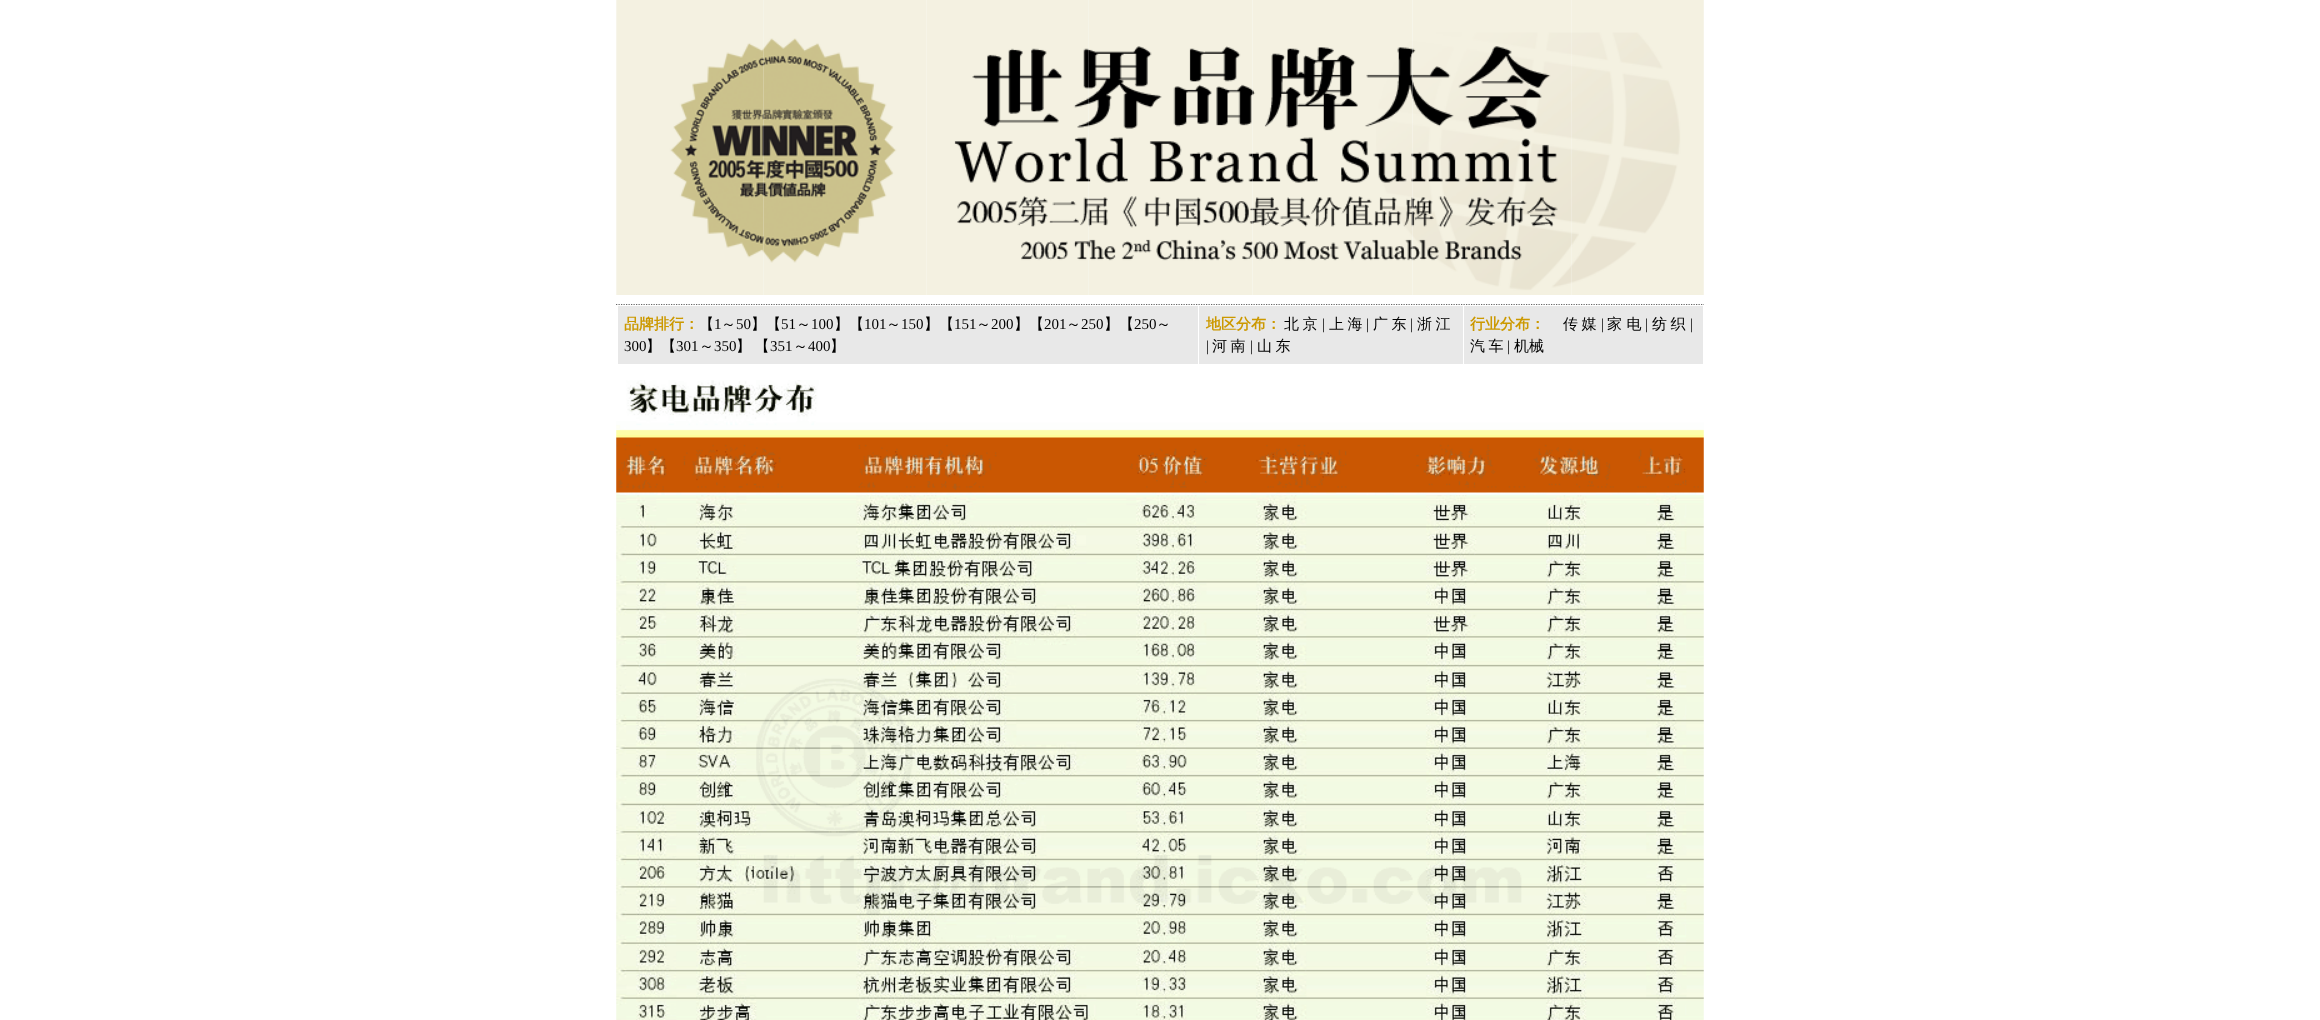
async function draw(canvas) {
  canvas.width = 2320
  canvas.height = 1020
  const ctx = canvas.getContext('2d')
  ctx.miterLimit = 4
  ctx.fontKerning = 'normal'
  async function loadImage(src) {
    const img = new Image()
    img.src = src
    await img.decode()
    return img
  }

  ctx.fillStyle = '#fff'
  ctx.fillRect(0, 0, 2320, 1020)
  ctx.drawImage(await loadImage('image0.png'), 616, 0, 148, 295)
  ctx.drawImage(await loadImage('image1.png'), 763, 0, 164, 295)
  ctx.drawImage(await loadImage('image2.png'), 926, 0, 163, 295)
  ctx.drawImage(await loadImage('image3.png'), 1088, 0, 165, 295)
  ctx.drawImage(await loadImage('image4.png'), 1252, 0, 161, 295)
  ctx.drawImage(await loadImage('image5.png'), 1412, 0, 160, 295)
  ctx.drawImage(await loadImage('image6.png'), 1571, 0, 133, 295)
  ctx.beginPath()
  ctx.moveTo(616, 304.5)
  ctx.lineTo(1704, 304.5)
  ctx.strokeStyle = '#666'
  ctx.lineWidth = 1.2
  ctx.setLineDash([1.25, 1.25])
  ctx.stroke()
  ctx.fillRect(616, 305, 1088, 1)
  ctx.fillStyle = '#e8e8e8'
  ctx.fillRect(618, 306, 580, 58)
  ctx.font = 'bold 15px WenQuanYi Zen Hei'
  ctx.fillStyle = '#c90'
  ctx.fillText('品牌排行：', 624, 329)
  ctx.font = '500 15px WenQuanYi Zen Hei'
  ctx.fillStyle = '#000'
  ctx.fillText('【', 699, 329)
  ctx.font = '15px Liberation Serif'
  ctx.fillText('1', 714, 329)
  ctx.font = '500 15px WenQuanYi Zen Hei'
  ctx.fillText('～', 721, 329)
  ctx.font = '15px Liberation Serif'
  ctx.fillText('50', 736, 329)
  ctx.font = '500 15px WenQuanYi Zen Hei'
  ctx.fillText('】【', 751, 329)
  ctx.font = '15px Liberation Serif'
  ctx.fillText('51', 781, 329)
  ctx.font = '500 15px WenQuanYi Zen Hei'
  ctx.fillText('～', 796, 329)
  ctx.font = '15px Liberation Serif'
  ctx.fillText('100', 811, 329)
  ctx.font = '500 15px WenQuanYi Zen Hei'
  ctx.fillText('】【', 834, 329)
  ctx.font = '15px Liberation Serif'
  ctx.fillText('101', 864, 329)
  ctx.font = '500 15px WenQuanYi Zen Hei'
  ctx.fillText('～', 886, 329)
  ctx.font = '15px Liberation Serif'
  ctx.fillText('150', 901, 329)
  ctx.font = '500 15px WenQuanYi Zen Hei'
  ctx.fillText('】【', 924, 329)
  ctx.font = '15px Liberation Serif'
  ctx.fillText('151', 954, 329)
  ctx.font = '500 15px WenQuanYi Zen Hei'
  ctx.fillText('～', 976, 329)
  ctx.font = '15px Liberation Serif'
  ctx.fillText('200', 991, 329)
  ctx.font = '500 15px WenQuanYi Zen Hei'
  ctx.fillText('】【', 1014, 329)
  ctx.font = '15px Liberation Serif'
  ctx.fillText('201', 1044, 329)
  ctx.font = '500 15px WenQuanYi Zen Hei'
  ctx.fillText('～', 1066, 329)
  ctx.font = '15px Liberation Serif'
  ctx.fillText('250', 1081, 329)
  ctx.font = '500 15px WenQuanYi Zen Hei'
  ctx.fillText('】【', 1104, 329)
  ctx.font = '15px Liberation Serif'
  ctx.fillText('250', 1134, 329)
  ctx.font = '500 15px WenQuanYi Zen Hei'
  ctx.fillText('～', 1156, 329)
  ctx.font = '15px Liberation Serif'
  ctx.fillText('300', 624, 351)
  ctx.font = '500 15px WenQuanYi Zen Hei'
  ctx.fillText('】【', 646, 351)
  ctx.font = '15px Liberation Serif'
  ctx.fillText('301', 676, 351)
  ctx.font = '500 15px WenQuanYi Zen Hei'
  ctx.fillText('～', 699, 351)
  ctx.font = '15px Liberation Serif'
  ctx.fillText('350', 714, 351)
  ctx.wordSpacing = '-1px'
  ctx.font = '500 15px WenQuanYi Zen Hei'
  ctx.fillText('】 【', 736, 351)
  ctx.wordSpacing = '0px'
  ctx.font = '15px Liberation Serif'
  ctx.fillText('351', 770, 351)
  ctx.font = '500 15px WenQuanYi Zen Hei'
  ctx.fillText('～', 793, 351)
  ctx.font = '15px Liberation Serif'
  ctx.fillText('400', 808, 351)
  ctx.font = '500 15px WenQuanYi Zen Hei'
  ctx.fillText('】', 830, 351)
  ctx.fillStyle = '#e8e8e8'
  ctx.fillRect(1199, 306, 264, 58)
  ctx.font = 'bold 15px WenQuanYi Zen Hei'
  ctx.fillStyle = '#c90'
  ctx.fillText('地区分布：', 1206, 329)
  ctx.wordSpacing = '-1px'
  ctx.font = '500 15px WenQuanYi Zen Hei'
  ctx.fillStyle = '#000'
  ctx.fillText('北 京', 1284, 329)
  ctx.wordSpacing = '0px'
  ctx.font = '15px Liberation Serif'
  ctx.fillText('|', 1322, 329)
  ctx.wordSpacing = '-1px'
  ctx.font = '500 15px WenQuanYi Zen Hei'
  ctx.fillText('上 海', 1329, 329)
  ctx.wordSpacing = '0px'
  ctx.font = '15px Liberation Serif'
  ctx.fillText('|', 1366, 329)
  ctx.wordSpacing = '-1px'
  ctx.font = '500 15px WenQuanYi Zen Hei'
  ctx.fillText('广 东', 1373, 329)
  ctx.wordSpacing = '0px'
  ctx.font = '15px Liberation Serif'
  ctx.fillText('|', 1410, 329)
  ctx.wordSpacing = '-1px'
  ctx.font = '500 15px WenQuanYi Zen Hei'
  ctx.fillText('浙 江', 1417, 329)
  ctx.wordSpacing = '0px'
  ctx.font = '15px Liberation Serif'
  ctx.fillText('|', 1206, 351)
  ctx.wordSpacing = '-1px'
  ctx.font = '500 15px WenQuanYi Zen Hei'
  ctx.fillText('河 南', 1212, 351)
  ctx.wordSpacing = '0px'
  ctx.font = '15px Liberation Serif'
  ctx.fillText('|', 1250, 351)
  ctx.wordSpacing = '-1px'
  ctx.font = '500 15px WenQuanYi Zen Hei'
  ctx.fillText('山 东', 1257, 351)
  ctx.fillStyle = '#e8e8e8'
  ctx.fillRect(1464, 306, 239, 58)
  ctx.wordSpacing = '0px'
  ctx.font = 'bold 15px WenQuanYi Zen Hei'
  ctx.fillStyle = '#c90'
  ctx.fillText('行业分布：', 1470, 329)
  ctx.wordSpacing = '-1px'
  ctx.font = '500 15px WenQuanYi Zen Hei'
  ctx.fillStyle = '#000'
  ctx.fillText('传 媒', 1563, 329)
  ctx.wordSpacing = '0px'
  ctx.font = '15px Liberation Serif'
  ctx.fillText('|', 1601, 329)
  ctx.font = '500 15px WenQuanYi Zen Hei'
  ctx.fillText('家 电', 1607, 329)
  ctx.font = '15px Liberation Serif'
  ctx.fillText('|', 1645, 329)
  ctx.wordSpacing = '-1px'
  ctx.font = '500 15px WenQuanYi Zen Hei'
  ctx.fillText('纺 织', 1652, 329)
  ctx.wordSpacing = '0px'
  ctx.font = '15px Liberation Serif'
  ctx.fillText('|', 1690, 329)
  ctx.wordSpacing = '-1px'
  ctx.font = '500 15px WenQuanYi Zen Hei'
  ctx.fillText('汽 车', 1470, 351)
  ctx.wordSpacing = '0px'
  ctx.font = '15px Liberation Serif'
  ctx.fillText('|', 1507, 351)
  ctx.font = '500 15px WenQuanYi Zen Hei'
  ctx.fillText('机械', 1514, 351)
  ctx.drawImage(await loadImage('image7.png'), 616, 380, 1088, 640)
}

draw(document.querySelector('canvas'))
